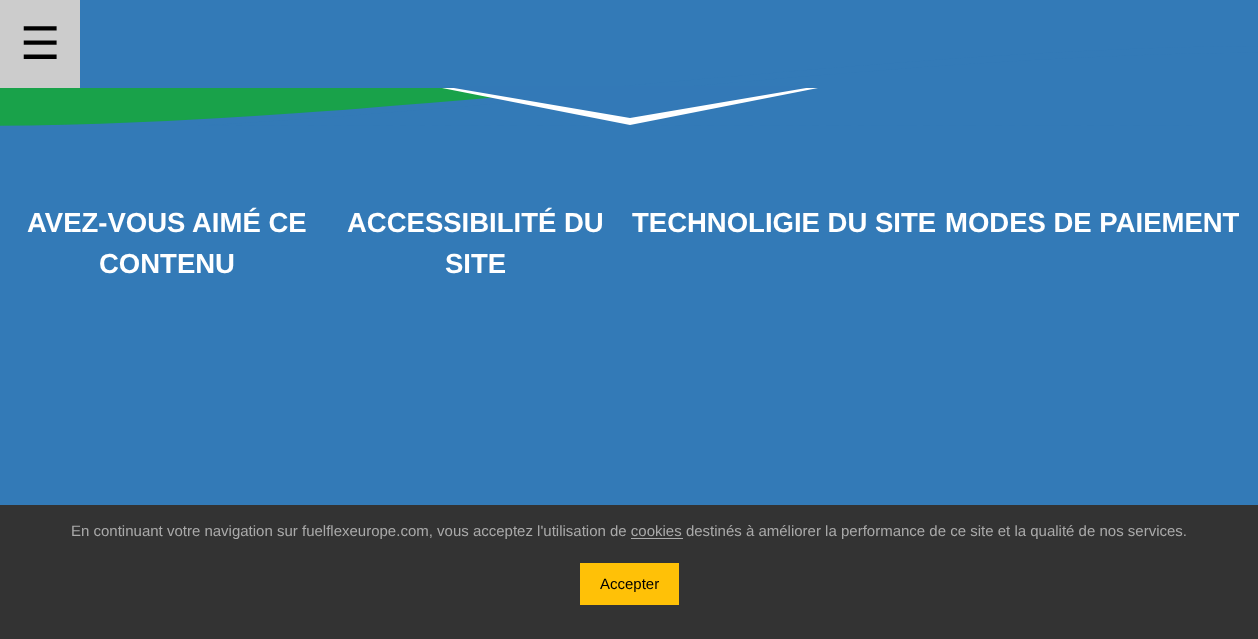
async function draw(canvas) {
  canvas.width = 1258
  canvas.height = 639
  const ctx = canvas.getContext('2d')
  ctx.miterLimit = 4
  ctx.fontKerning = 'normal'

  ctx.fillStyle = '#337ab7'
  ctx.fillRect(0, 0, 1258, 639)
  ctx.fillStyle = '#19a24a'
  ctx.fillRect(0, 88, 493, 38)
  ctx.save()
  ctx.beginPath()
  ctx.rect(0, 3, 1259, 125)
  ctx.clip()
  ctx.fillStyle = '#337ab7'
  ctx.beginPath()
  ctx.moveTo(0, 129)
  ctx.bezierCurveTo(378, 128, 881, 49, 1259, 49)
  ctx.bezierCurveTo(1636, 49, 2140, 128, 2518, 128)
  ctx.closePath()
  ctx.fill()
  ctx.beginPath()
  ctx.moveTo(0, 129)
  ctx.bezierCurveTo(377.5, 127.5, 881, 49.5, 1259, 49.5)
  ctx.bezierCurveTo(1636.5, 49.5, 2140, 127.5, 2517.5, 127.5)
  ctx.closePath()
  ctx.strokeStyle = '#337ab7'
  ctx.lineWidth = 6.3
  ctx.stroke()
  ctx.restore()
  ctx.fillStyle = '#ccc'
  ctx.fillRect(0, 0, 80, 88)
  ctx.font = '45px DejaVu Sans'
  ctx.fillStyle = '#000'
  ctx.fillText('☰', 20, 59)
  ctx.fillStyle = '#fff'
  ctx.beginPath()
  ctx.moveTo(442, 88)
  ctx.lineTo(818, 88)
  ctx.lineTo(630, 125)
  ctx.closePath()
  ctx.fill()
  ctx.fillStyle = '#3379b7'
  ctx.beginPath()
  ctx.moveTo(442, 86)
  ctx.lineTo(818, 86)
  ctx.lineTo(630, 118)
  ctx.closePath()
  ctx.fill()
  ctx.font = 'bold 27.5px Liberation Sans'
  ctx.fillStyle = '#fff'
  ctx.fillText('AVEZ-VOUS AIMÉ CE', 27, 232)
  ctx.fillText('CONTENU', 99, 273)
  ctx.fillText('ACCESSIBILITÉ DU', 347, 232)
  ctx.fillText('SITE', 445, 273)
  ctx.fillText('TECHNOLIGIE DU SITE', 632, 232)
  ctx.fillText('MODES DE PAIEMENT', 945, 232)
  ctx.fillStyle = '#333'
  ctx.fillRect(0, 505, 1258, 134)
  ctx.font = '15px Liberation Sans'
  ctx.fillStyle = '#aaa'
  ctx.fillText('En continuant votre navigation sur fuelflexeurope.com, vous acceptez l\'utilisation de cookies destinés à améliorer la performance de ce site et la qualité de nos services.', 71, 536)
  ctx.fillRect(631, 538, 52, 1)
  ctx.fillStyle = '#ffc107'
  ctx.fillRect(580, 563, 99, 42)
  ctx.fillStyle = '#000'
  ctx.fillText('Accepter', 600, 589)
}

draw(document.querySelector('canvas'))
